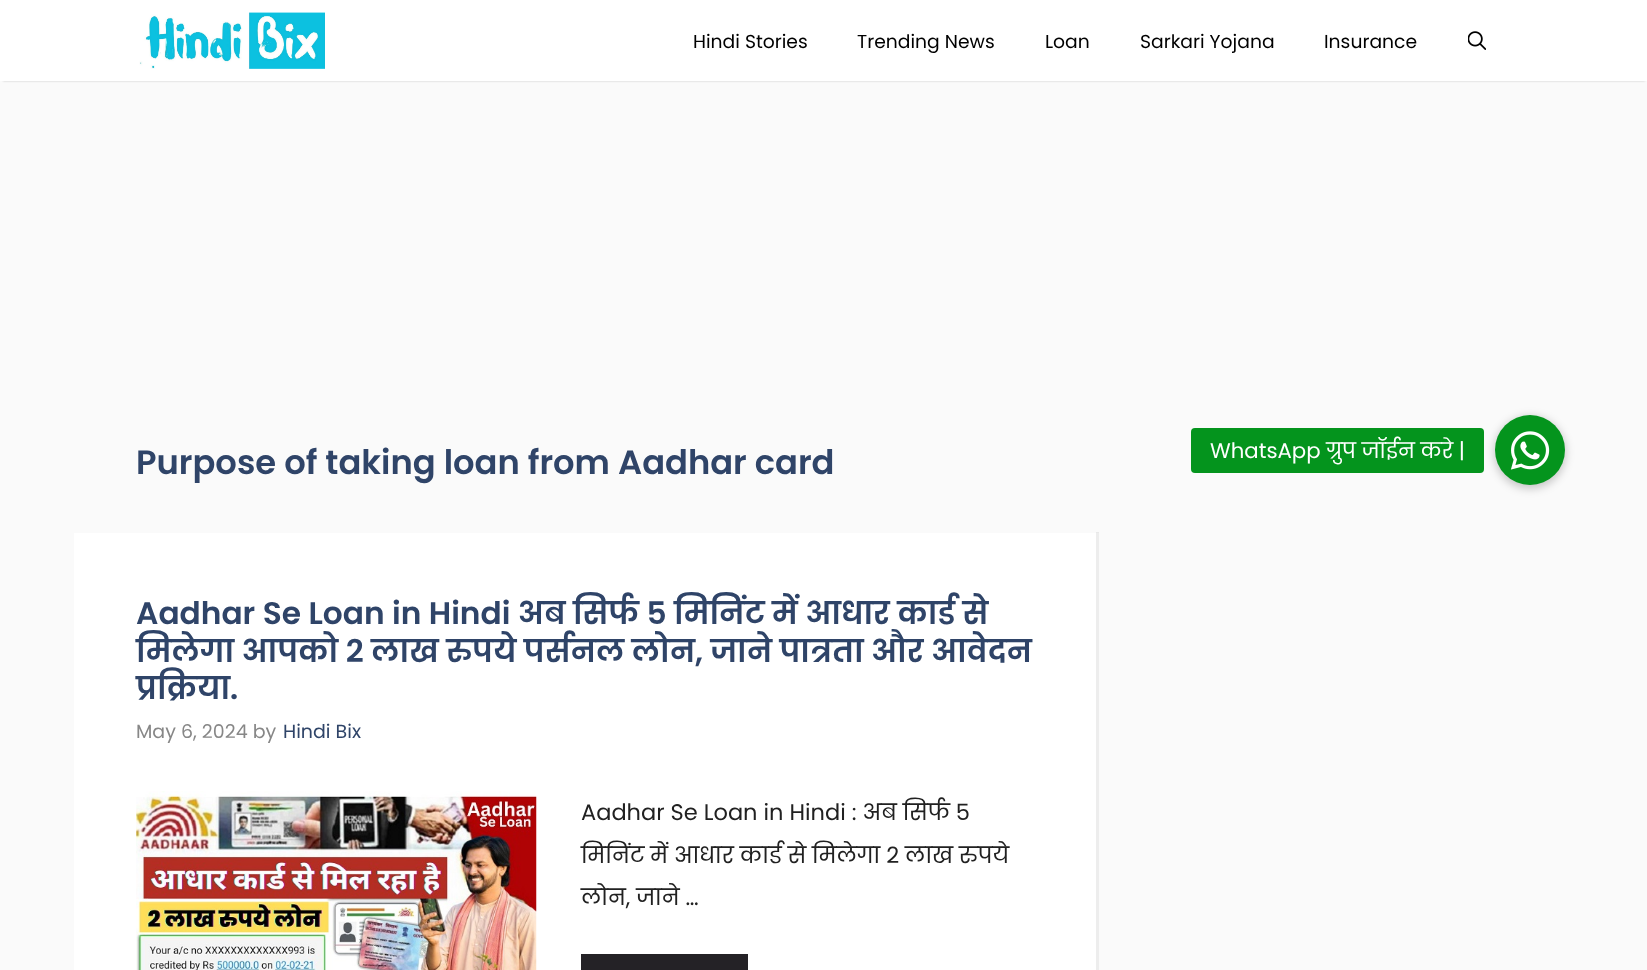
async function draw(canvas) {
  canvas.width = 1647
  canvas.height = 970
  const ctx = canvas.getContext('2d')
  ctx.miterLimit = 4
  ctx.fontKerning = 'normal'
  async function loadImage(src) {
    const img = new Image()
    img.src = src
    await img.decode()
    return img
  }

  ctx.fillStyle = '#fafafa'
  ctx.fillRect(0, 0, 1647, 970)
  ctx.fillStyle = '#00000033'
  ctx.filter = 'blur(1px)'
  ctx.beginPath()
  ctx.rect(3, 5, 1642, 76)
  ctx.fill()
  ctx.filter = 'none'
  ctx.fillStyle = '#fff'
  ctx.fillRect(0, 0, 1647, 81)
  ctx.drawImage(await loadImage('image0.png'), 139, 12, 186, 57)
  ctx.font = '18.75px Poppins'
  ctx.fillStyle = '#000'
  ctx.fillText('Hindi Stories', 693, 48)
  ctx.fillText('Trending News', 857, 48)
  ctx.fillText('Loan', 1045, 48)
  ctx.fillText('Sarkari Yojana', 1140, 48)
  ctx.fillText('Insurance', 1324, 48)
  ctx.drawImage(await loadImage('image1.png'), 1468, 31, 18, 19)
  ctx.font = '600 33.75px Poppins'
  ctx.fillStyle = '#2f4468'
  ctx.fillText('Purpose of taking loan from Aadhar card', 136, 474)
  ctx.fillStyle = '#fff'
  ctx.fillRect(74, 533, 1025, 437)
  ctx.fillStyle = '#00000012'
  ctx.beginPath()
  ctx.moveTo(1099, 532)
  ctx.lineTo(1099, 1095)
  ctx.lineTo(1096, 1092)
  ctx.lineTo(1096, 532)
  ctx.closePath()
  ctx.fill()
  ctx.font = '600 31.25px Poppins'
  ctx.fillStyle = '#2f4468'
  ctx.fillText('Aadhar Se Loan in Hindi अब सिर्फ 5 मिनिंट में आधार कार्ड से', 136, 624)
  ctx.fillText('मिलेगा आपको 2 लाख रुपये पर्सनल लोन, जाने पात्रता और आवेदन', 136, 662)
  ctx.fillText('प्रक्रिया.', 136, 699)
  ctx.font = '19px Poppins'
  ctx.fillStyle = '#878787'
  ctx.fillText('May 6, 2024 by', 136, 738)
  ctx.fillStyle = '#2f4468'
  ctx.fillText('Hindi Bix', 283, 738)
  ctx.drawImage(await loadImage('image2.png'), 136, 791, 401, 179)
  ctx.font = '22.5px Poppins'
  ctx.fillStyle = '#212121'
  ctx.fillText('Aadhar Se Loan in Hindi : अब सिर्फ 5', 581, 820)
  ctx.fillText('मिनिंट में आधार कार्ड से मिलेगा 2 लाख रुपये', 581, 863)
  ctx.fillText('लोन, जाने …', 581, 905)
  ctx.fillStyle = '#242226'
  ctx.fillRect(581, 954, 167, 16)
  ctx.fillStyle = '#00000033'
  ctx.filter = 'blur(4px)'
  ctx.beginPath()
  ctx.roundRect(1494, 416, 72, 73, 36)
  ctx.fill()
  ctx.filter = 'none'
  ctx.fillStyle = '#04941d'
  ctx.beginPath()
  ctx.arc(1530, 450, 35, 0, 2 * Math.PI)
  ctx.fill()
  ctx.beginPath()
  ctx.roundRect(1191, 428, 293, 45, 4)
  ctx.fill()
  ctx.font = '21.25px Poppins'
  ctx.fillStyle = '#fff'
  ctx.fillText('WhatsApp ग्रुप जॉईन करे |', 1210, 458)
  ctx.drawImage(await loadImage('image3.png'), 1510, 431, 40, 39)
}

draw(document.querySelector('canvas'))
